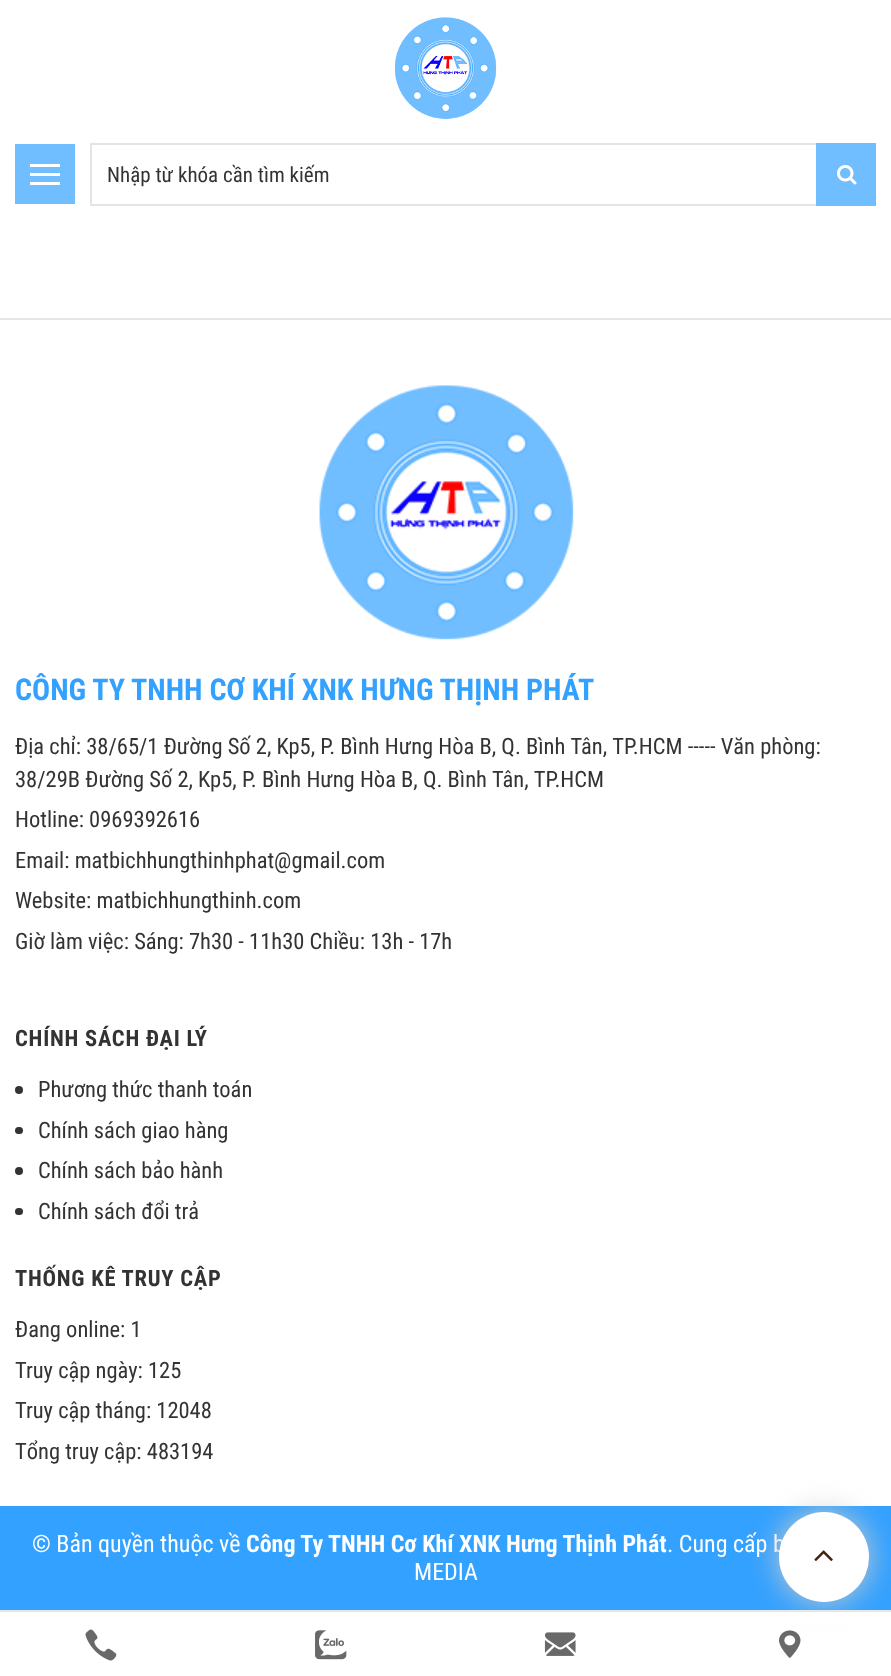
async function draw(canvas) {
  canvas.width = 891
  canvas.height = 1676
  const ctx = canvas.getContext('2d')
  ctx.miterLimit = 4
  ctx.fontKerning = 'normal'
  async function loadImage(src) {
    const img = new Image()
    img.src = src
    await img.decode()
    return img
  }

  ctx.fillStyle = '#fff'
  ctx.fillRect(0, 0, 891, 1676)
  ctx.drawImage(await loadImage('image0.png'), 395, 17, 102, 102)
  ctx.fillStyle = '#70bdff'
  ctx.fillRect(15, 144, 60, 60)
  ctx.fillStyle = '#fff'
  ctx.fillRect(30, 173, 30, 3)
  ctx.fillRect(30, 164, 30, 3)
  ctx.fillRect(30, 182, 30, 3)
  ctx.strokeStyle = '#e4e4e4'
  ctx.lineWidth = 2
  ctx.strokeRect(91, 144, 784, 61)
  ctx.font = '21px Roboto Condensed'
  ctx.fillStyle = '#333'
  ctx.fillText('Nhập từ khóa cần tìm kiếm', 107, 182)
  ctx.fillStyle = '#70bdff'
  ctx.fillRect(816, 143, 60, 63)
  ctx.drawImage(await loadImage('image1.png'), 837, 165, 20, 20)
  ctx.fillStyle = '#e6e6e6'
  ctx.fillRect(0, 318, 891, 2)
  ctx.drawImage(await loadImage('image2.png'), 319, 385, 255, 255)
  ctx.font = 'bold 30px Roboto Condensed'
  ctx.fillStyle = '#33a1ff'
  ctx.fillText('CÔNG TY TNHH CƠ KHÍ XNK HƯNG THỊNH PHÁT', 15, 700)
  ctx.font = '22.5px Roboto Condensed'
  ctx.fillStyle = '#333'
  ctx.fillText('Địa chỉ: 38/65/1 Đường Số 2, Kp5, P. Bình Hưng Hòa B, Q. Bình Tân, TP.HCM ----- Văn phòng:', 15, 754)
  ctx.fillText('38/29B Đường Số 2, Kp5, P. Bình Hưng Hòa B, Q. Bình Tân, TP.HCM', 15, 787)
  ctx.fillText('Hotline: 0969392616', 15, 827)
  ctx.fillText('Email: matbichhungthinhphat@gmail.com', 15, 868)
  ctx.fillText('Website: matbichhungthinh.com', 15, 908)
  ctx.fillText('Giờ làm việc: Sáng: 7h30 - 11h30 Chiều: 13h - 17h', 15, 949)
  ctx.letterSpacing = '0.75px'
  ctx.font = 'bold 22.5px Roboto Condensed'
  ctx.fillText('CHÍNH SÁCH ĐẠI LÝ', 15, 1046)
  ctx.beginPath()
  ctx.arc(19, 1090, 4, 0, 2 * Math.PI)
  ctx.fill()
  ctx.letterSpacing = '0px'
  ctx.font = '22.5px Roboto Condensed'
  ctx.fillText('Phương thức thanh toán', 38, 1097)
  ctx.beginPath()
  ctx.roundRect(15, 1127, 8, 7, 3.5)
  ctx.fill()
  ctx.fillText('Chính sách giao hàng', 38, 1138)
  ctx.beginPath()
  ctx.arc(19, 1171, 4, 0, 2 * Math.PI)
  ctx.fill()
  ctx.fillText('Chính sách bảo hành', 38, 1178)
  ctx.beginPath()
  ctx.roundRect(15, 1208, 8, 7, 3.5)
  ctx.fill()
  ctx.fillText('Chính sách đổi trả', 38, 1219)
  ctx.letterSpacing = '0.75px'
  ctx.font = 'bold 22.5px Roboto Condensed'
  ctx.fillText('THỐNG KÊ TRUY CẬP', 15, 1286)
  ctx.letterSpacing = '0px'
  ctx.font = '22.5px Roboto Condensed'
  ctx.fillText('Đang online: 1', 15, 1337)
  ctx.fillText('Truy cập ngày: 125', 15, 1378)
  ctx.fillText('Truy cập tháng: 12048', 15, 1418)
  ctx.fillText('Tổng truy cập: 483194', 15, 1459)
  ctx.fillStyle = '#33a1ff'
  ctx.fillRect(0, 1506, 891, 104)
  ctx.font = '24px Roboto Condensed'
  ctx.fillStyle = '#fff'
  ctx.fillText('© Bản quyền thuộc về', 32, 1552)
  ctx.font = 'bold 24px Roboto Condensed'
  ctx.fillText('Công Ty TNHH Cơ Khí XNK Hưng Thịnh Phát', 246, 1552)
  ctx.font = '24px Roboto Condensed'
  ctx.fillText('. Cung cấp b', 667, 1552)
  ctx.fillText('MEDIA', 414, 1580)
  ctx.fillStyle = '#ccc'
  ctx.filter = 'blur(15px)'
  ctx.beginPath()
  ctx.roundRect(779, 1512, 90, 90, 45)
  ctx.fill()
  ctx.filter = 'none'
  ctx.fillStyle = '#fff'
  ctx.beginPath()
  ctx.arc(824, 1557, 45, 0, 2 * Math.PI)
  ctx.fill()
  ctx.drawImage(await loadImage('image3.png'), 814, 1550, 19, 11)
  ctx.fillRect(786, 1612, 76, 13)
  ctx.fillStyle = '#e7e7e7'
  ctx.fillRect(0, 1610, 891, 2)
  ctx.drawImage(await loadImage('image4.png'), 85, 1629, 32, 32)
  ctx.drawImage(await loadImage('image5.png'), 315, 1630, 32, 30)
  ctx.drawImage(await loadImage('image6.png'), 544, 1632, 32, 24)
  ctx.drawImage(await loadImage('image7.png'), 779, 1630, 22, 28)
}

draw(document.querySelector('canvas'))
